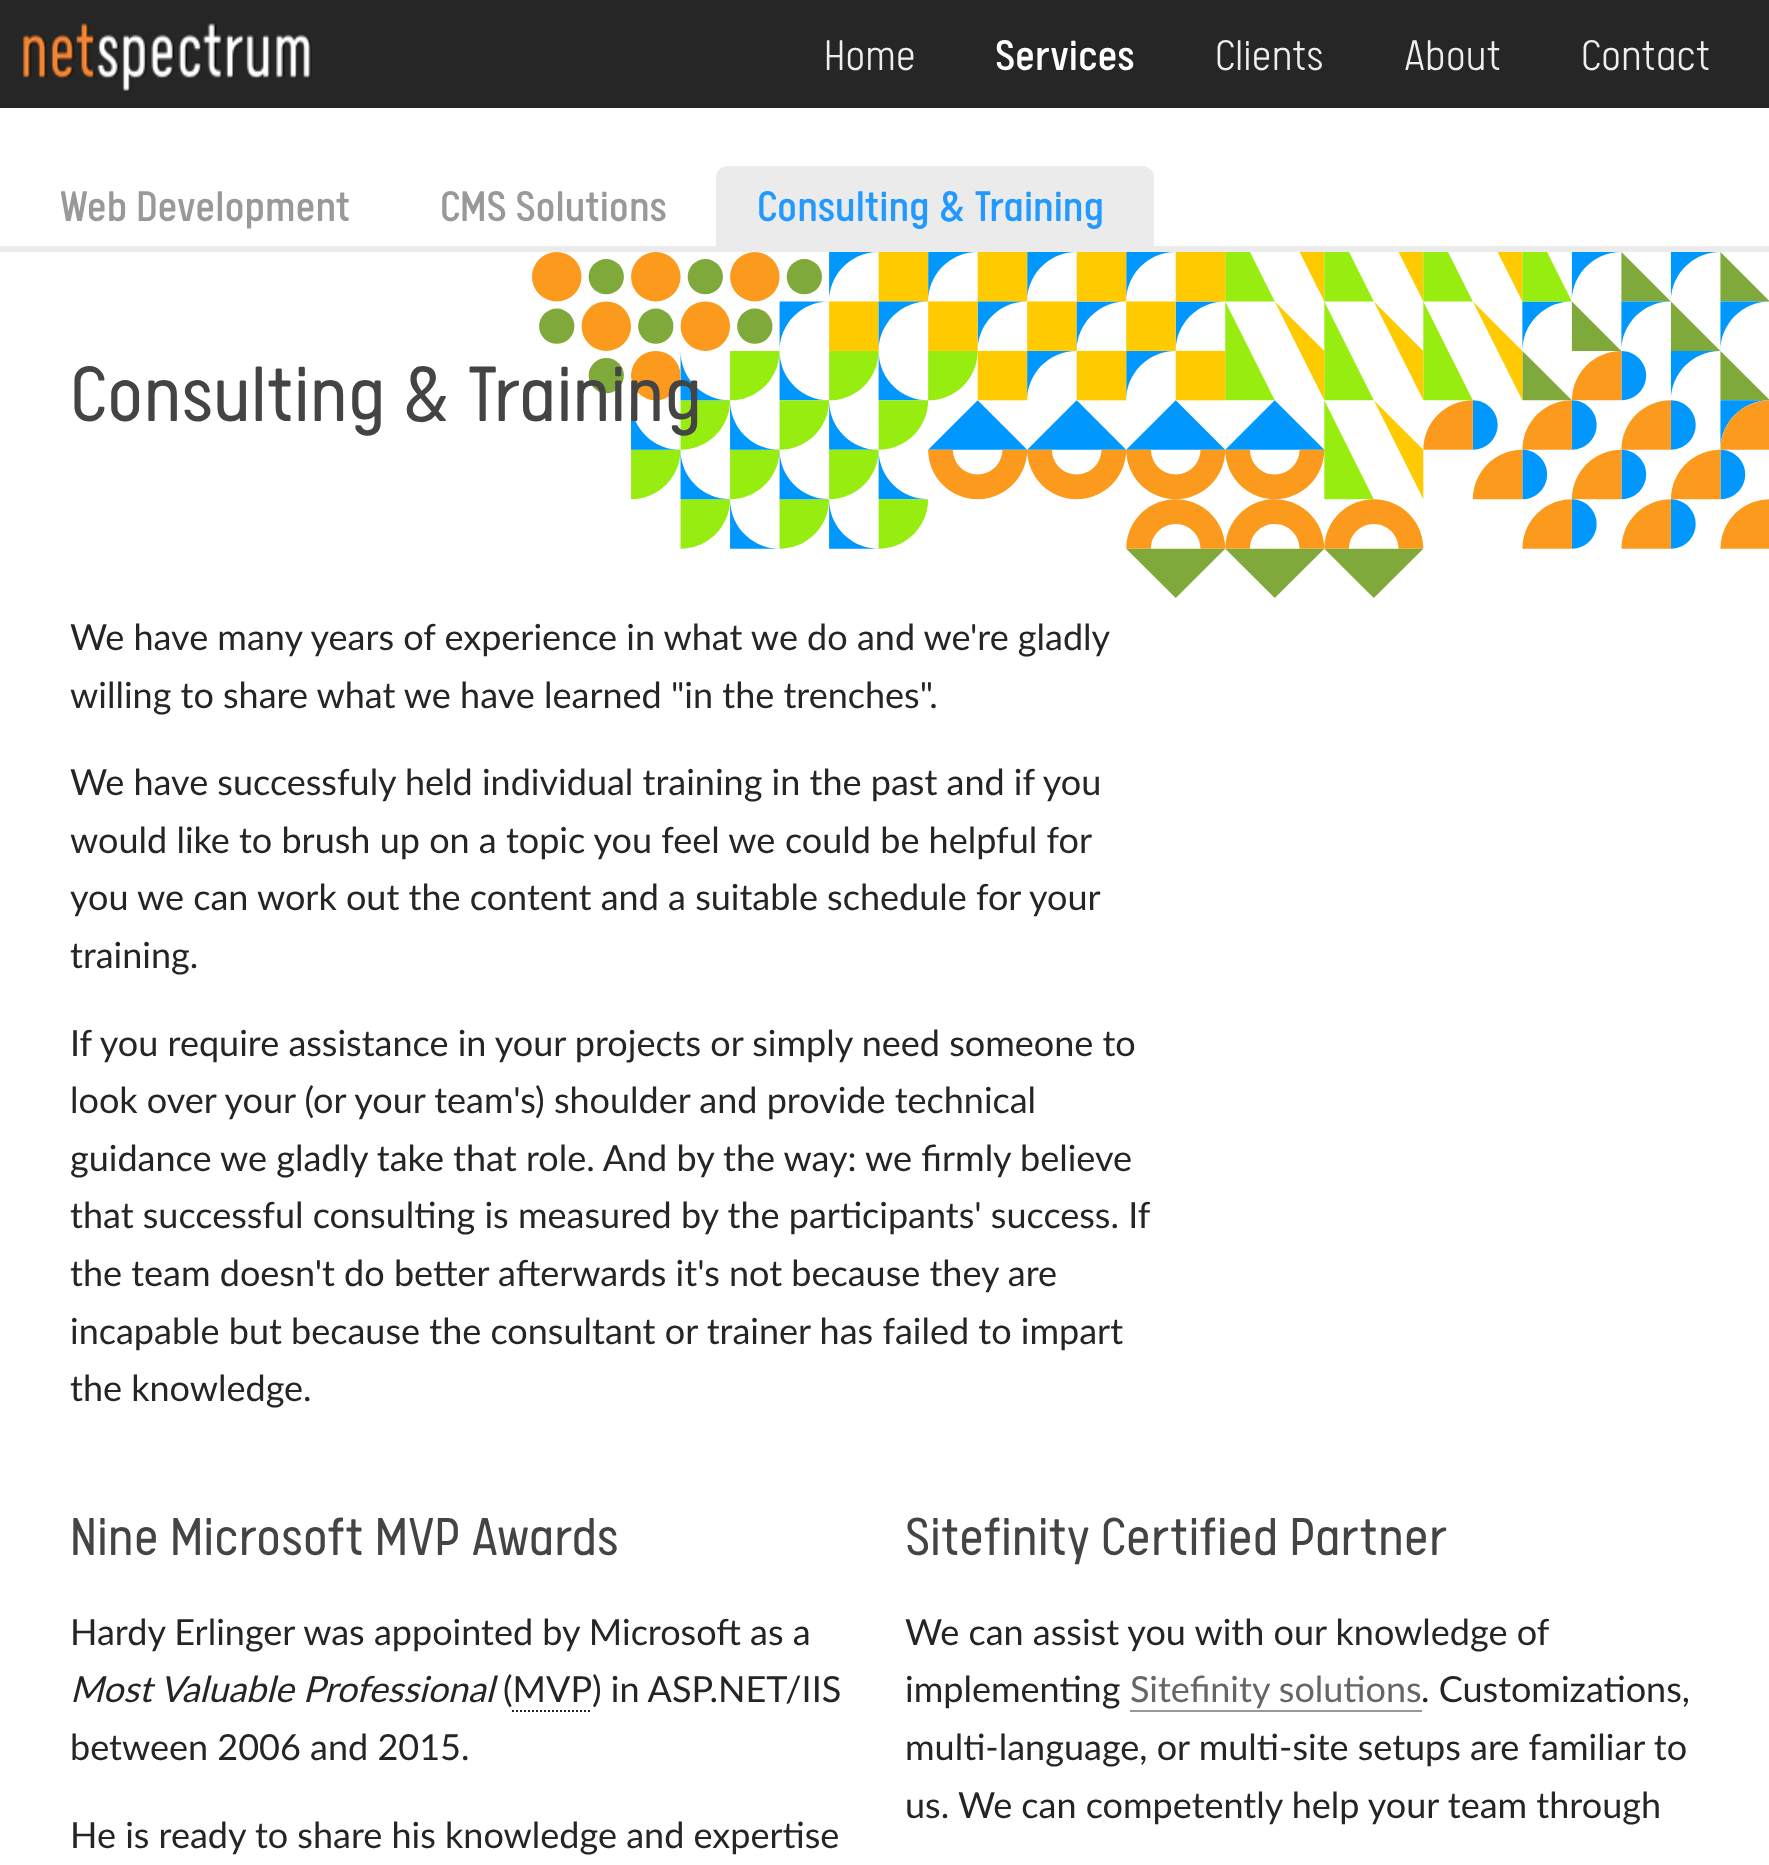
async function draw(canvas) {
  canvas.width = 1769
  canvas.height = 1865
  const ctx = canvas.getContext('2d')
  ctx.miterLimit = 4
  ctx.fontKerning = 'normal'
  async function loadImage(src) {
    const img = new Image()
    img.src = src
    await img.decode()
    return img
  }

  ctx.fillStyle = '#fff'
  ctx.fillRect(0, 0, 1769, 1865)
  ctx.fillStyle = '#262626'
  ctx.fillRect(0, 0, 1769, 108)
  ctx.drawImage(await loadImage('image0.png'), 23, 23, 289, 69)
  ctx.font = '300 48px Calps'
  ctx.fillStyle = '#eee'
  ctx.fillText('Home', 824, 70)
  ctx.font = '48px Calps'
  ctx.fillStyle = '#fff'
  ctx.fillText('Services', 995, 70)
  ctx.font = '300 48px Calps'
  ctx.fillStyle = '#eee'
  ctx.fillText('Clients', 1215, 70)
  ctx.fillText('About', 1404, 70)
  ctx.fillText('Contact', 1581, 70)
  ctx.fillStyle = '#ebebeb'
  ctx.fillRect(0, 246, 1769, 6)
  ctx.font = '48px Calps'
  ctx.fillStyle = '#999'
  ctx.fillText('Web Development', 60, 221)
  ctx.fillText('CMS Solutions', 440, 221)
  ctx.fillStyle = '#ebebeb'
  ctx.beginPath()
  ctx.roundRect(716, 166, 438, 82, [12, 12, 0, 0])
  ctx.fill()
  ctx.fillStyle = '#29f'
  ctx.fillText('Consulting & Training', 757, 221)
  ctx.drawImage(await loadImage('image1.png'), 532, 252, 1237, 346)
  ctx.font = '300 88px "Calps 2"'
  ctx.fillStyle = '#444'
  ctx.fillText('Consulting & Training', 70, 421)
  ctx.font = '36px Lato'
  ctx.fillStyle = '#252525'
  ctx.fillText('We have many years of experience in what we do and we\'re gladly', 70, 650)
  ctx.fillText('willing to share what we have learned "in the trenches".', 70, 708)
  ctx.fillText('We have successfuly held individual training in the past and if you', 70, 795)
  ctx.fillText('would like to brush up on a topic you feel we', 70, 853)
  ctx.fillText('could be helpful for', 785, 853)
  ctx.fillText('you we can work out the content and a suitable schedule for your', 70, 910)
  ctx.fillText('training.', 70, 968)
  ctx.fillText('If you require assistance in your projects or simply need someone to', 70, 1056)
  ctx.fillText('look over your (or your team\'s) shoulder and provide technical', 70, 1113)
  ctx.fillText('guidance we gladly take that role. And by the way: we firmly believe', 70, 1171)
  ctx.fillText('that successful consulting is', 70, 1228)
  ctx.fillText('measured by the participants\' success. If', 518, 1228)
  ctx.fillText('the team doesn\'t do better afterwards it\'s not because they are', 70, 1286)
  ctx.fillText('incapable but because the consultant or trainer has failed to impart', 70, 1344)
  ctx.fillText('the knowledge.', 70, 1401)
  ctx.font = '300 60px "Calps 2"'
  ctx.fillStyle = '#444'
  ctx.fillText('Nine Microsoft MVP Awards', 70, 1555)
  ctx.font = '36px Lato'
  ctx.fillStyle = '#252525'
  ctx.fillText('Hardy Erlinger was appointed by Microsoft as a', 70, 1645)
  ctx.font = 'italic 36px Lato'
  ctx.fillText('Most Valuable Professional', 70, 1702)
  ctx.font = '36px Lato'
  ctx.fillText('(MVP) in ASP.NET/IIS', 503, 1702)
  ctx.beginPath()
  ctx.moveTo(512, 1711)
  ctx.lineTo(592, 1711)
  ctx.strokeStyle = '#252525'
  ctx.lineWidth = 2
  ctx.setLineDash([2, 2])
  ctx.stroke()
  ctx.fillText('between 2006 and 2015.', 70, 1760)
  ctx.fillText('He is ready to share his knowledge and expertise', 70, 1848)
  ctx.font = '300 60px "Calps 2"'
  ctx.fillStyle = '#444'
  ctx.fillText('Sitefinity Certified Partner', 905, 1555)
  ctx.font = '36px Lato'
  ctx.fillStyle = '#252525'
  ctx.fillText('We can assist you with our knowledge of', 905, 1645)
  ctx.fillText('implementing', 905, 1702)
  ctx.fillStyle = '#666'
  ctx.fillText('Sitefinity solutions', 1130, 1702)
  ctx.fillStyle = '#999'
  ctx.fillRect(1130, 1710, 292, 2)
  ctx.fillStyle = '#252525'
  ctx.fillText('. Customizations,', 1421, 1702)
  ctx.fillText('multi-language, or multi-site setups are familiar to', 905, 1760)
  ctx.fillText('us. We can competently help your team through', 905, 1818)
}

draw(document.querySelector('canvas'))
